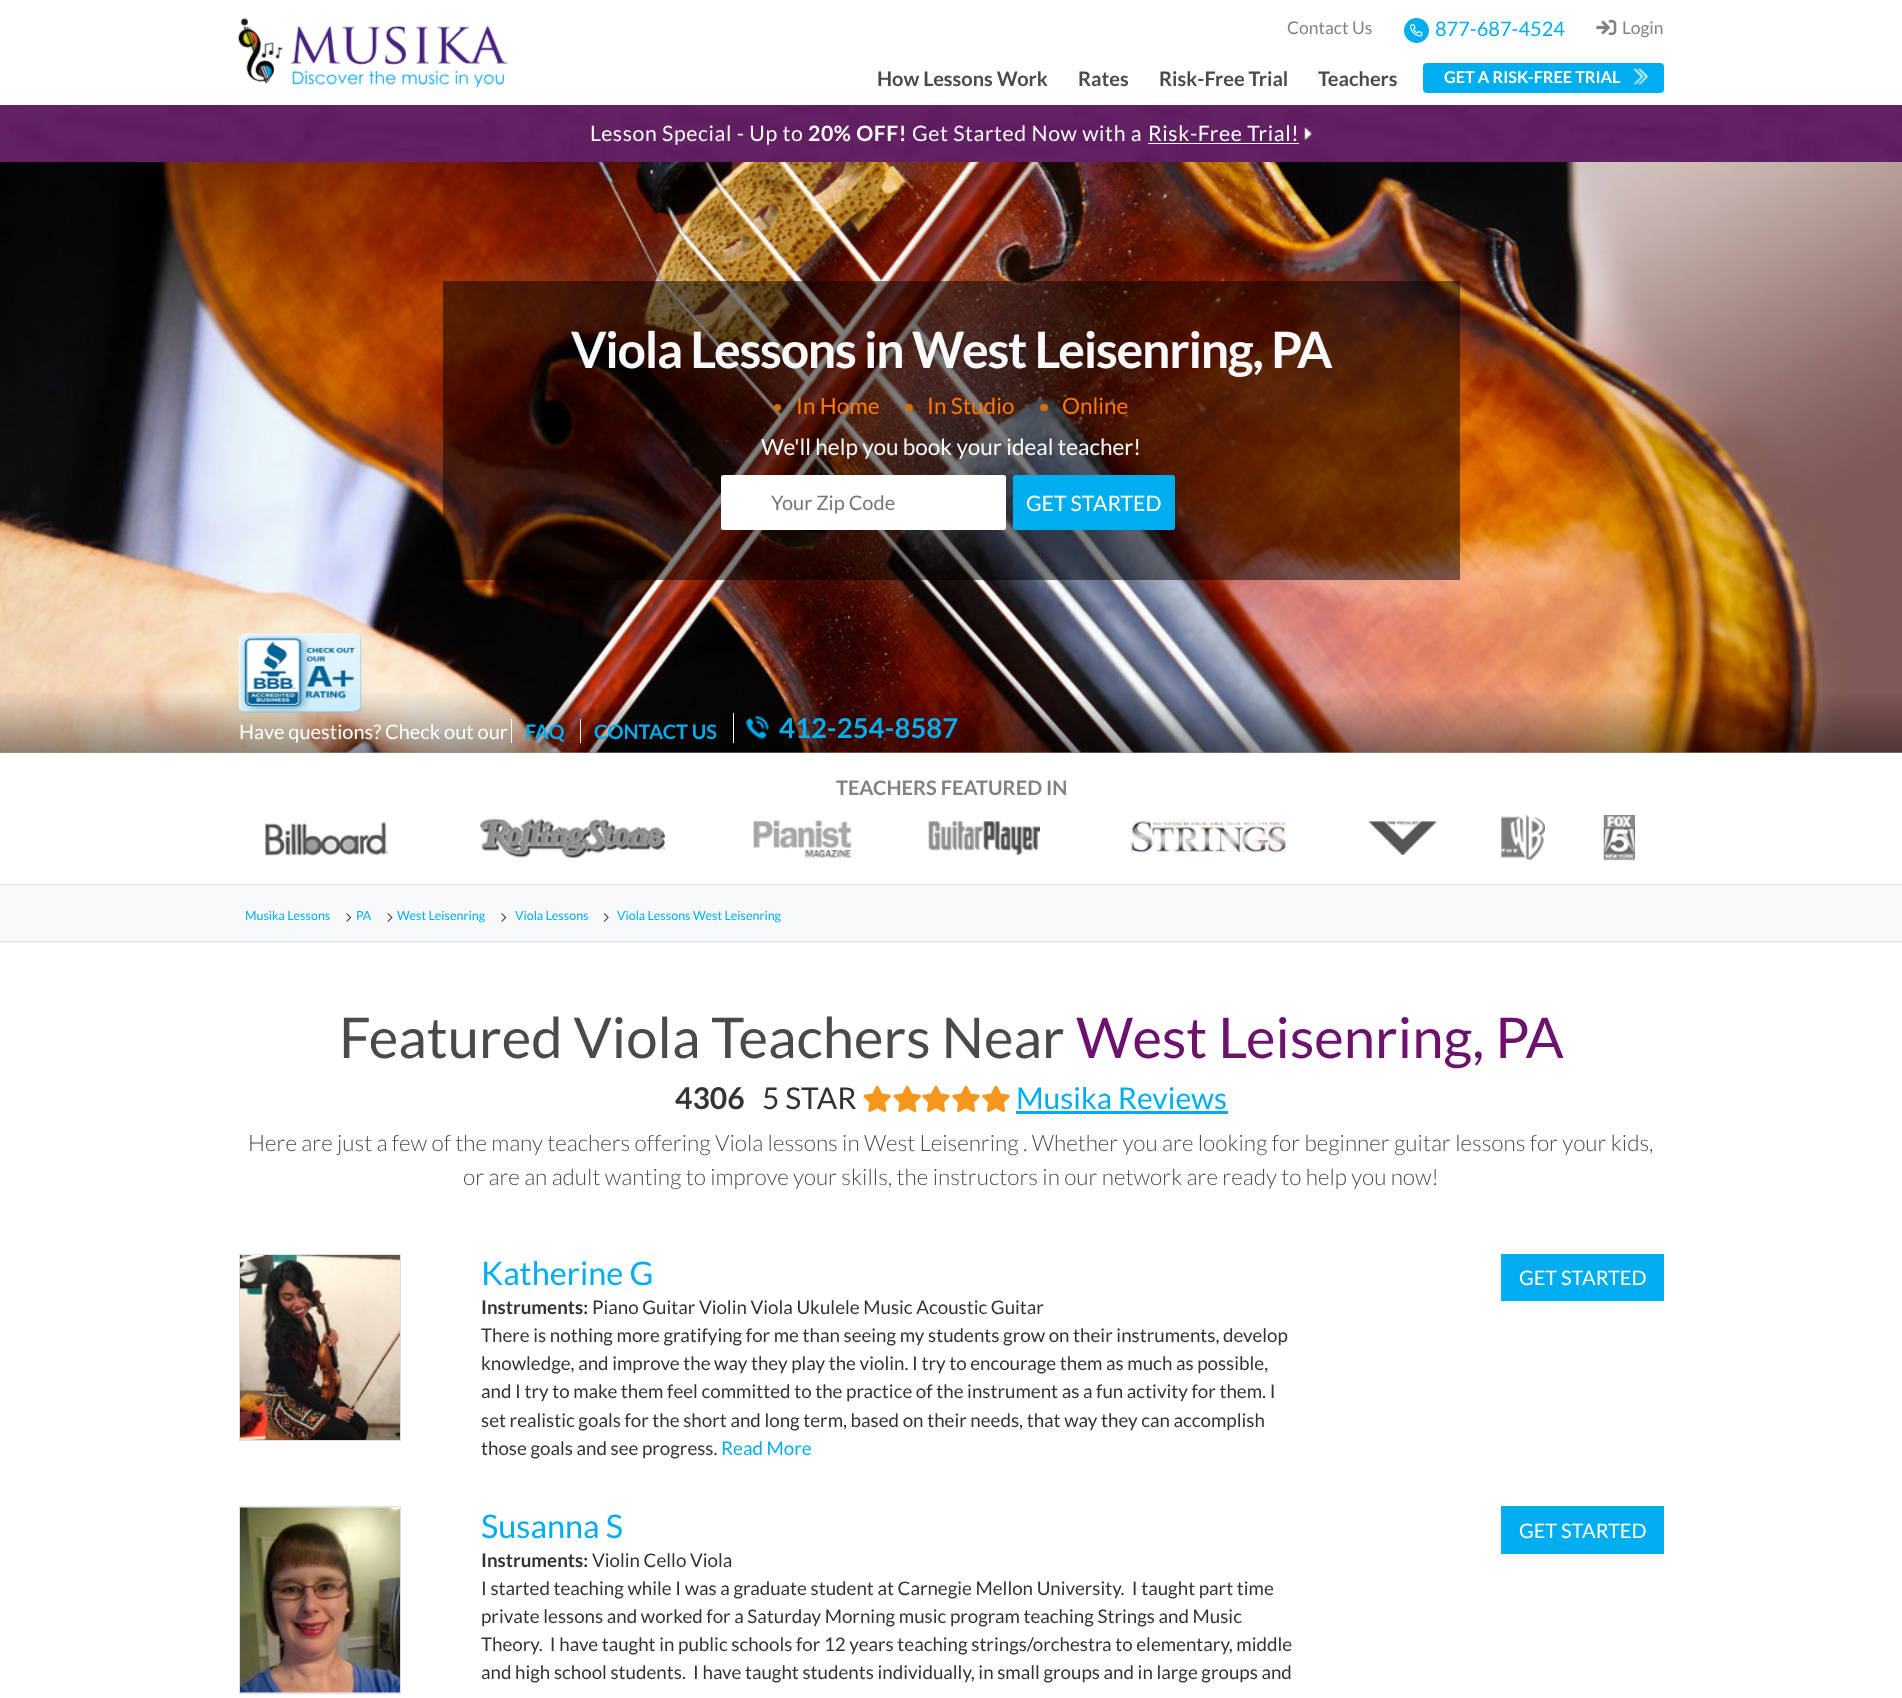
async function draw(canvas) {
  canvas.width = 1902
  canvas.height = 1698
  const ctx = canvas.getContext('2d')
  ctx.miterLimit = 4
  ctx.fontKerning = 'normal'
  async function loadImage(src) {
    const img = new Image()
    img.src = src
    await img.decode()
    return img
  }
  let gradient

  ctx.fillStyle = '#fff'
  ctx.fillRect(0, 0, 1902, 1698)
  ctx.font = '17.5px Lato'
  ctx.fillStyle = '#808285'
  ctx.fillText('Contact Us', 1287, 34)
  ctx.fillStyle = '#00aeef'
  ctx.beginPath()
  ctx.arc(1416.5, 30.5, 12.5, 0, 2 * Math.PI)
  ctx.fill()
  ctx.drawImage(await loadImage('image0.png'), 1410, 24, 13, 13)
  ctx.font = '20px Lato'
  ctx.fillText('877-687-4524', 1435, 36)
  ctx.drawImage(await loadImage('image1.png'), 1596, 20, 21, 15)
  ctx.font = '17.5px Lato'
  ctx.fillStyle = '#808285'
  ctx.fillText('Login', 1622, 34)
  ctx.drawImage(await loadImage('image2.png'), 238, 18, 270, 70)
  ctx.font = 'bold 20px Lato'
  ctx.fillStyle = '#4a4a4a'
  ctx.fillText('How Lessons Work', 877, 86)
  ctx.fillText('Rates', 1078, 86)
  ctx.fillText('Risk-Free Trial', 1159, 86)
  ctx.fillText('Teachers', 1318, 86)
  ctx.fillStyle = '#00aeef'
  ctx.beginPath()
  ctx.roundRect(1423, 63, 241, 30, 4)
  ctx.fill()
  ctx.drawImage(await loadImage('image3.png'), 1633, 68, 15, 17)
  ctx.font = 'bold 16.25px Lato'
  ctx.fillStyle = '#fff'
  ctx.fillText('GET A RISK-FREE TRIAL', 1444, 83)
  ctx.drawImage(await loadImage('image4.png'), 0, 105, 1902, 57)
  ctx.letterSpacing = '0.6px'
  ctx.font = '21.25px Lato'
  ctx.fillStyle = '#f8f9fa'
  ctx.fillText('Lesson Special - Up to', 590, 141)
  ctx.font = 'bold 21.25px Lato'
  ctx.fillText('20% OFF!', 808, 141)
  ctx.font = '21.25px Lato'
  ctx.fillText('Get Started Now with a', 912, 141)
  ctx.drawImage(await loadImage('image5.png'), 1304, 127, 9, 14)
  ctx.fillStyle = '#fff'
  ctx.fillText('Risk-Free Trial!', 1148, 141)
  ctx.fillRect(1148, 143, 151, 1)
  ctx.drawImage(await loadImage('image6.png'), 0, 162, 1902, 591)
  ctx.fillStyle = '#00000080'
  ctx.fillRect(443, 281, 1017, 299)
  ctx.letterSpacing = '-1.25px'
  ctx.font = 'bold 50px Lato'
  ctx.fillStyle = '#f8f9fa'
  ctx.fillText('Viola Lessons in West Leisenring, PA', 571, 368)
  ctx.fillStyle = '#d66f00'
  ctx.beginPath()
  ctx.arc(777.5, 407.5, 3.5, 0, 2 * Math.PI)
  ctx.fill()
  ctx.letterSpacing = '0px'
  ctx.font = '22.5px Lato'
  ctx.fillStyle = '#ff7800'
  ctx.fillText('In Home', 796, 414)
  ctx.fillStyle = '#d66f00'
  ctx.beginPath()
  ctx.roundRect(905, 404, 8, 7, 3.5)
  ctx.fill()
  ctx.fillStyle = '#ff7800'
  ctx.fillText('In Studio', 927, 414)
  ctx.fillStyle = '#d66f00'
  ctx.beginPath()
  ctx.roundRect(1040, 404, 8, 7, 3.5)
  ctx.fill()
  ctx.fillStyle = '#ff7800'
  ctx.fillText('Online', 1062, 414)
  ctx.fillStyle = '#f8f9fa'
  ctx.fillText('We\'ll help you book your ideal teacher!', 761, 455)
  ctx.fillStyle = '#fff'
  ctx.beginPath()
  ctx.roundRect(721, 475, 285, 55, 2.5)
  ctx.fill()
  ctx.font = '20px Lato'
  ctx.fillStyle = '#757575'
  ctx.fillText('Your Zip Code', 771, 510)
  ctx.fillStyle = '#00aeef'
  ctx.beginPath()
  ctx.roundRect(1013, 475, 162, 55, 2.5)
  ctx.fill()
  ctx.font = '21.25px Lato'
  ctx.fillStyle = '#fff'
  ctx.fillText('GET STARTED', 1026, 511)
  gradient = ctx.createLinearGradient(951, 690, 951, 753)
  gradient.addColorStop(0, '#00000000')
  gradient.addColorStop(1, '#00000066')
  ctx.fillStyle = gradient
  ctx.fillRect(0, 693, 1902, 60)
  ctx.drawImage(await loadImage('image7.png'), 238, 633, 124, 80)
  ctx.font = '20px Lato'
  ctx.fillStyle = '#fff'
  ctx.fillText('Have questions? Check out our', 239, 739)
  ctx.font = 'bold 20px Lato'
  ctx.fillStyle = '#00aeef'
  ctx.fillText('FAQ', 525, 739)
  ctx.fillStyle = '#fff'
  ctx.fillRect(511, 719, 1, 24)
  ctx.fillStyle = '#00aeef'
  ctx.fillText('CONTACT US', 594, 739)
  ctx.fillStyle = '#fff'
  ctx.fillRect(580, 719, 1, 24)
  ctx.fillRect(733, 713, 1, 30)
  ctx.drawImage(await loadImage('image8.png'), 746, 716, 23, 23)
  ctx.font = 'bold 27.5px Lato'
  ctx.fillStyle = '#00aeef'
  ctx.fillText('412-254-8587', 779, 738)
  ctx.fillStyle = '#dee2e6'
  ctx.fillRect(0, 884, 1902, 1)
  ctx.font = 'bold 20px Lato'
  ctx.fillStyle = '#808285'
  ctx.fillText('TEACHERS FEATURED IN', 836, 795)
  ctx.drawImage(await loadImage('image9.png'), 265, 821, 123, 35)
  ctx.drawImage(await loadImage('image10.png'), 480, 818, 185, 40)
  ctx.drawImage(await loadImage('image11.png'), 753, 820, 99, 38)
  ctx.drawImage(await loadImage('image12.png'), 928, 821, 112, 35)
  ctx.drawImage(await loadImage('image13.png'), 1130, 819, 157, 34)
  ctx.drawImage(await loadImage('image14.png'), 1368, 821, 70, 34)
  ctx.drawImage(await loadImage('image15.png'), 1501, 815, 44, 46)
  ctx.drawImage(await loadImage('image16.png'), 1603, 815, 32, 46)
  ctx.fillStyle = '#f8f9fa'
  ctx.fillRect(0, 885, 1902, 58)
  ctx.fillStyle = '#dee2e6'
  ctx.fillRect(0, 941, 1902, 1)
  ctx.font = '12.5px Lato'
  ctx.fillStyle = '#00aeef'
  ctx.fillText('Musika Lessons', 245, 920)
  ctx.drawImage(await loadImage('image17.png'), 346, 913, 6, 9)
  ctx.fillText('PA', 356, 920)
  ctx.drawImage(await loadImage('image18.png'), 387, 913, 6, 9)
  ctx.fillText('West Leisenring', 397, 920)
  ctx.drawImage(await loadImage('image17.png'), 501, 913, 6, 9)
  ctx.fillText('Viola Lessons', 515, 920)
  ctx.drawImage(await loadImage('image19.png'), 603, 913, 6, 9)
  ctx.fillText('Viola Lessons West Leisenring', 617, 920)
  ctx.font = '56.25px Lato'
  ctx.fillStyle = '#4a4a4a'
  ctx.fillText('Featured Viola Teachers Near', 339, 1058)
  ctx.fillStyle = '#6c116c'
  ctx.fillText('West Leisenring, PA', 1076, 1058)
  ctx.font = 'bold 30px Lato'
  ctx.fillStyle = '#333'
  ctx.fillText('4306', 675, 1109)
  ctx.font = '30px Lato'
  ctx.fillText('5 STAR', 762, 1109)
  ctx.drawImage(await loadImage('image20.png'), 863, 1085, 28, 27)
  ctx.drawImage(await loadImage('image20.png'), 893, 1085, 28, 27)
  ctx.drawImage(await loadImage('image21.png'), 922, 1085, 28, 27)
  ctx.drawImage(await loadImage('image21.png'), 952, 1085, 28, 27)
  ctx.drawImage(await loadImage('image21.png'), 982, 1085, 28, 27)
  ctx.fillStyle = '#00aeef'
  ctx.fillText('Musika Reviews', 1016, 1109)
  ctx.fillRect(1016, 1111, 212, 3)
  ctx.font = '300 22.5px Lato'
  ctx.fillStyle = '#4a4a4a'
  ctx.fillText('Here are just a few of the many teachers offering Viola lessons in West Leisenring . Whether you are looking for beginner guitar lessons for your kids,', 248, 1151)
  ctx.fillText('or are an adult wanting to improve your skills, the instructors in our network are ready to help you now!', 463, 1185)
  ctx.strokeStyle = '#dee2e6'
  ctx.strokeRect(239.5, 1254.5, 161, 186)
  ctx.drawImage(await loadImage('image22.png'), 240, 1255, 160, 185)
  ctx.font = '32.5px Lato'
  ctx.fillStyle = '#00aeef'
  ctx.fillText('Katherine G', 481, 1285)
  ctx.font = 'bold 18.75px Lato'
  ctx.fillStyle = '#333'
  ctx.fillText('Instruments:', 481, 1314)
  ctx.font = '18.75px Lato'
  ctx.fillText('Piano Guitar Violin Viola Ukulele Music Acoustic Guitar', 592, 1314)
  ctx.fillText('There is nothing more gratifying for me than seeing my students grow on their instruments, develop', 481, 1342)
  ctx.fillText('knowledge, and improve the way they play the violin. I try to encourage them as much as possible,', 481, 1370)
  ctx.fillText('and I try to make them feel committed to the practice of the instrument as a fun activity for them. I', 481, 1398)
  ctx.fillText('set realistic goals for the short and long term, based on their needs, that way they can accomplish', 481, 1427)
  ctx.fillText('those goals and see progress.', 481, 1455)
  ctx.fillStyle = '#00aeef'
  ctx.fillText('Read More', 721, 1455)
  ctx.fillRect(1501, 1254, 163, 47)
  ctx.font = '20px Lato'
  ctx.fillStyle = '#fff'
  ctx.fillText('GET STARTED', 1519, 1285)
  ctx.strokeRect(239.5, 1506.5, 161, 187)
  ctx.drawImage(await loadImage('image23.png'), 240, 1507, 160, 186)
  ctx.font = '32.5px Lato'
  ctx.fillStyle = '#00aeef'
  ctx.fillText('Susanna S', 481, 1538)
  ctx.font = 'bold 18.75px Lato'
  ctx.fillStyle = '#333'
  ctx.fillText('Instruments:', 481, 1567)
  ctx.font = '18.75px Lato'
  ctx.fillText('Violin Cello Viola', 592, 1567)
  ctx.fillText('I started teaching while I was a graduate student at Carnegie Mellon University.  I taught part time', 481, 1595)
  ctx.fillText('private lessons and worked for a Saturday Morning music program teaching Strings and Music', 481, 1623)
  ctx.fillText('Theory.  I have taught in public schools for 12 years teaching strings/orchestra to elementary, middle', 481, 1651)
  ctx.fillText('and high school students.  I have taught students individually, in small groups and in large groups and', 481, 1679)
  ctx.fillStyle = '#00aeef'
  ctx.fillRect(1501, 1506, 163, 48)
  ctx.font = '20px Lato'
  ctx.fillStyle = '#fff'
  ctx.fillText('GET STARTED', 1519, 1538)
}

draw(document.querySelector('canvas'))
